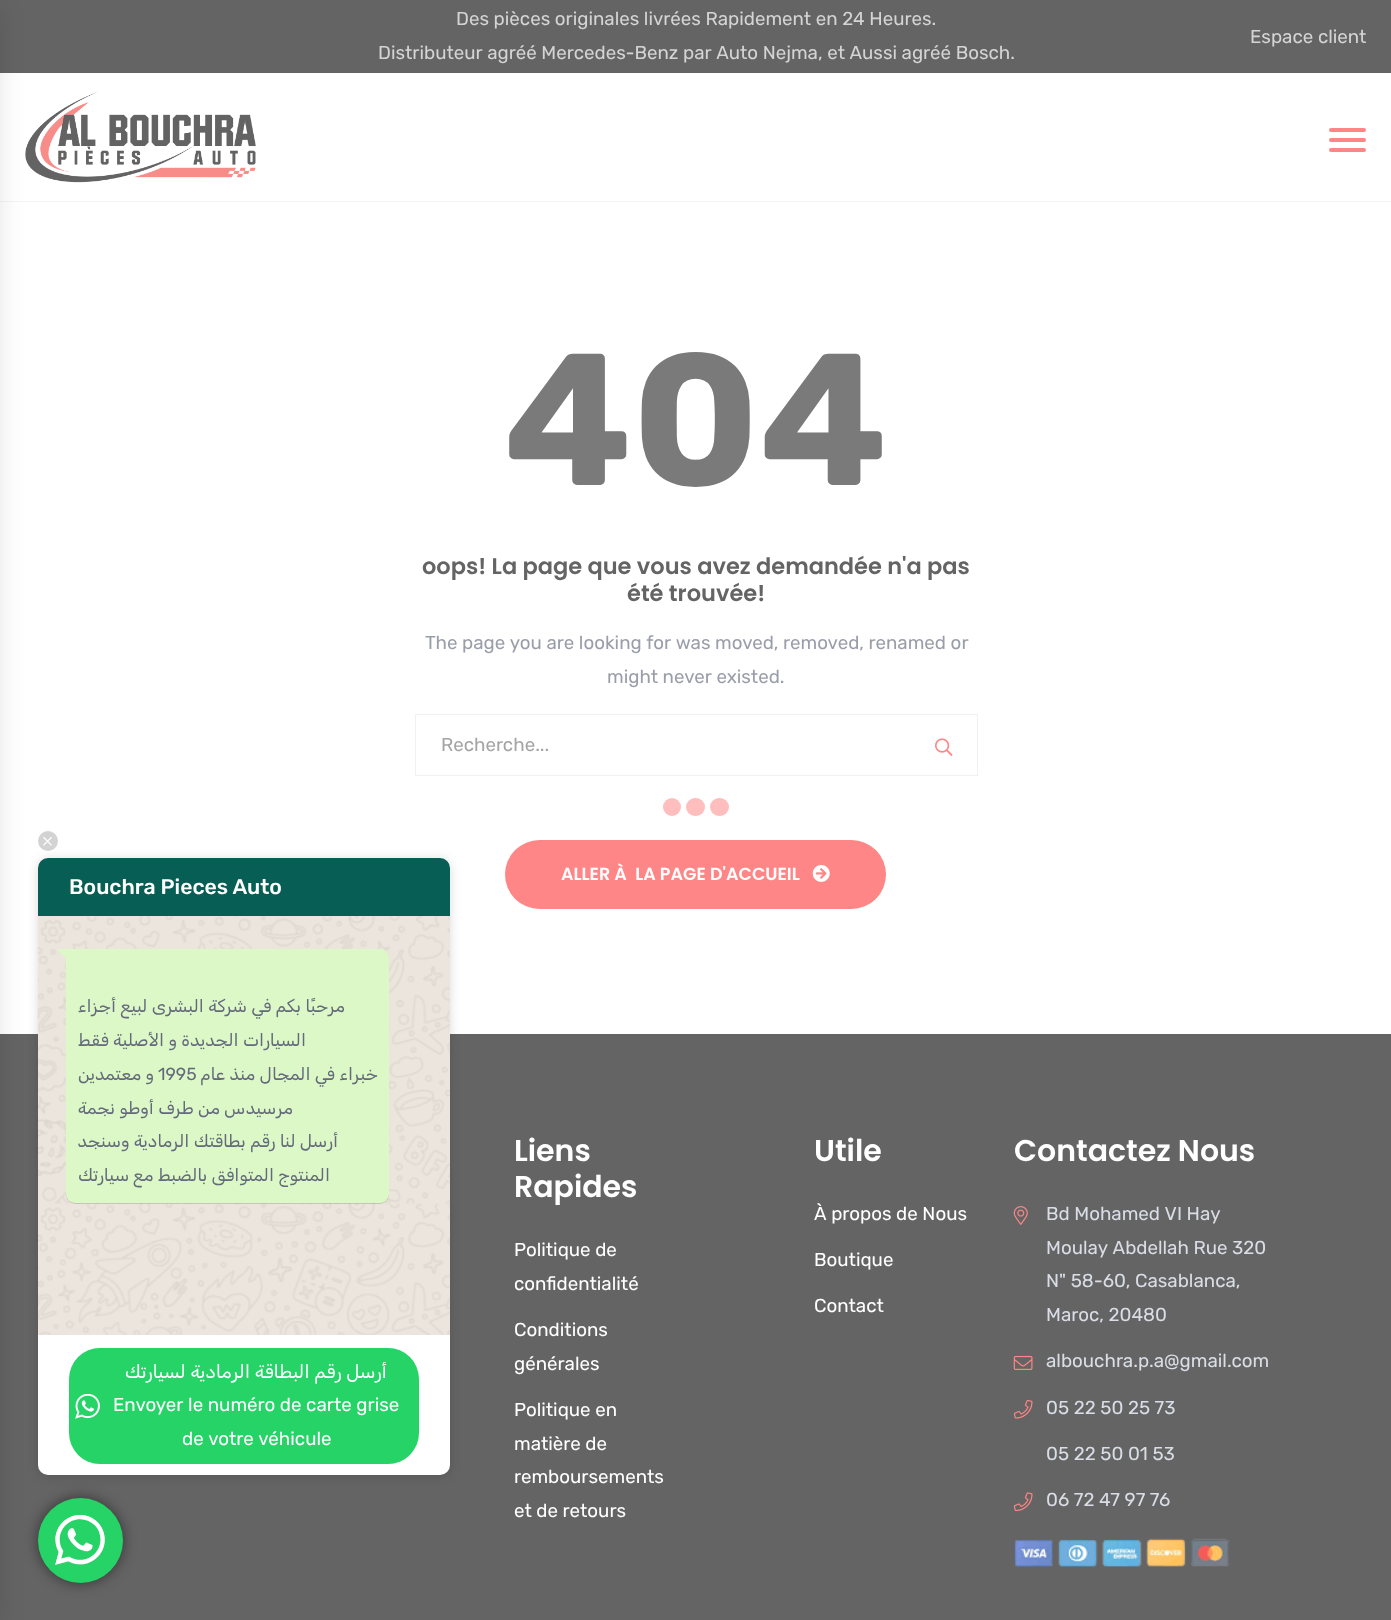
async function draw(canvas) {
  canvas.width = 1391
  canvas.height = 1620
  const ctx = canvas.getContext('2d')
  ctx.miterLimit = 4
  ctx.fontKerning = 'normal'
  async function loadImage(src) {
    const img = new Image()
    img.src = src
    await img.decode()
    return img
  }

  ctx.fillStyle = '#fff'
  ctx.fillRect(0, 0, 1391, 1620)
  ctx.drawImage(await loadImage('image0.png'), 25, 92, 231, 91)
  ctx.fillStyle = '#646464'
  ctx.fillRect(0, 0, 1391, 73)
  ctx.fillStyle = '#f4f4f4'
  ctx.fillRect(0, 201, 1391, 1)
  ctx.fillStyle = '#646464'
  ctx.fillRect(0, 1034, 1391, 586)
  ctx.fillStyle = '#0000001a'
  ctx.filter = 'blur(12.5px)'
  ctx.beginPath()
  ctx.rect(-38, 6, 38, 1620)
  ctx.fill()
  ctx.filter = 'none'
  ctx.fillStyle = '#ff8686'
  ctx.beginPath()
  ctx.roundRect(1329, 128, 37, 4, 2)
  ctx.fill()
  ctx.beginPath()
  ctx.roundRect(1329, 138, 37, 4, 2)
  ctx.fill()
  ctx.beginPath()
  ctx.roundRect(1329, 148, 37, 4, 2)
  ctx.fill()
  ctx.font = '18.75px Rubik'
  ctx.fillStyle = '#d4d4d4'
  ctx.fillText('Des pièces originales livrées Rapidement en 24 Heures.', 456, 25)
  ctx.fillText('Distributeur agréé Mercedes-Benz par Auto Nejma, et Aussi agréé Bosch.', 378, 59)
  ctx.fillText('Espace client', 1250, 43)
  ctx.font = 'bold 187.5px Rubik'
  ctx.fillStyle = '#7a7a7a'
  ctx.fillText('404', 504, 485)
  ctx.font = '600 22.5px Poppins'
  ctx.fillStyle = '#646464'
  ctx.fillText('oops! La page que vous avez demandée n\'a pas', 422, 574)
  ctx.fillText('été trouvée!', 627, 601)
  ctx.font = '18.75px Rubik'
  ctx.fillStyle = '#9a9eaa'
  ctx.fillText('The page you are looking for was moved, removed, renamed or', 425, 649)
  ctx.fillText('might never existed.', 607, 683)
  ctx.strokeStyle = '#f1f1f1'
  ctx.strokeRect(415.5, 714.5, 562, 61)
  ctx.fillStyle = '#a5a5a5'
  ctx.fillText('Recherche...', 441, 751)
  ctx.drawImage(await loadImage('image1.png'), 935, 738, 18, 18)
  ctx.fillStyle = '#ff8686'
  ctx.beginPath()
  ctx.roundRect(505, 840, 381, 69, 34.5)
  ctx.fill()
  ctx.font = '600 17.5px Poppins'
  ctx.fillStyle = '#fff'
  ctx.fillText('ALLER À  LA PAGE D\'ACCUEIL', 561, 880)
  ctx.drawImage(await loadImage('image2.png'), 812, 865, 18, 17)
  ctx.fillStyle = '#ffbebe'
  ctx.beginPath()
  ctx.arc(672, 807, 9, 0, 2 * Math.PI)
  ctx.fill()
  ctx.beginPath()
  ctx.roundRect(686, 798, 19, 18, 9)
  ctx.fill()
  ctx.beginPath()
  ctx.roundRect(710, 798, 19, 18, 9)
  ctx.fill()
  ctx.fillStyle = '#d3d3d3'
  ctx.beginPath()
  ctx.arc(48, 841, 10, 0, 2 * Math.PI)
  ctx.fill()
  ctx.drawImage(await loadImage('image3.png'), 43, 837, 9, 9)
  ctx.fillStyle = '#00000024'
  ctx.filter = 'blur(5.5px)'
  ctx.beginPath()
  ctx.roundRect(38, 859, 412, 617, 10)
  ctx.fill()
  ctx.filter = 'none'
  ctx.fillStyle = '#075e54'
  ctx.beginPath()
  ctx.roundRect(38, 858, 412, 60, [10, 10, 0, 0])
  ctx.fill()
  ctx.font = '500 21.25px Rubik'
  ctx.fillStyle = '#fff'
  ctx.fillText('Bouchra Pieces Auto', 69, 894)
  ctx.beginPath()
  ctx.roundRect(38, 1334, 412, 141, [0, 0, 10, 10])
  ctx.fill()
  ctx.fillStyle = '#ece5dd'
  ctx.fillRect(38, 916, 412, 419)
  ctx.drawImage(await loadImage('image4.png'), 37, 916, 413, 419)
  ctx.fillStyle = '#00000024'
  ctx.filter = 'blur(0.5px)'
  ctx.beginPath()
  ctx.roundRect(66, 950, 323, 254, 9)
  ctx.fill()
  ctx.filter = 'none'
  ctx.fillStyle = '#dcf8c6'
  ctx.beginPath()
  ctx.roundRect(66, 949, 323, 254, [0, 9, 9, 9])
  ctx.fill()
  ctx.beginPath()
  ctx.moveTo(67, 949)
  ctx.lineTo(67, 960)
  ctx.lineTo(56.5, 949)
  ctx.closePath()
  ctx.fill()
  ctx.direction = 'rtl'
  ctx.font = '17.5px Rubik'
  ctx.fillStyle = '#646a7c'
  ctx.fillText('أجزاء', 116, 1012)
  ctx.fillText('مرحبًا بكم في شركة البشرى لبيع', 345, 1012)
  ctx.fillText('السيارات الجديدة و الأصلية فقط', 306, 1046)
  ctx.fillText('و معتمدين', 154, 1080)
  ctx.direction = 'ltr'
  ctx.fillText('1995', 158, 1080)
  ctx.direction = 'rtl'
  ctx.fillText('خبراء في المجال منذ عام', 378, 1080)
  ctx.fillText('مرسيدس من طرف أوطو نجمة', 293, 1114)
  ctx.fillText('أرسل لنا رقم بطاقتك الرمادية وسنجد', 338, 1147)
  ctx.fillText('المنتوج المتوافق بالضبط مع سيارتك', 330, 1181)
  ctx.fillStyle = '#25d366'
  ctx.beginPath()
  ctx.roundRect(69, 1348, 350, 116, 31)
  ctx.fill()
  ctx.drawImage(await loadImage('image5.png'), 75, 1394, 25, 25)
  ctx.font = '18.75px Rubik'
  ctx.fillStyle = '#fff'
  ctx.fillText('أرسل رقم البطاقة الرمادية لسيارتك', 387, 1378)
  ctx.direction = 'ltr'
  ctx.fillText('Envoyer le numéro de carte grise', 113, 1411)
  ctx.fillText('de votre véhicule', 182, 1445)
  ctx.fillStyle = '#00000080'
  ctx.filter = 'blur(7px)'
  ctx.beginPath()
  ctx.roundRect(38, 1498, 85, 85, 42.5)
  ctx.fill()
  ctx.filter = 'none'
  ctx.fillStyle = '#25d366'
  ctx.beginPath()
  ctx.arc(80.5, 1540.5, 42.5, 0, 2 * Math.PI)
  ctx.fill()
  ctx.drawImage(await loadImage('image6.png'), 55, 1515, 50, 50)
  ctx.font = '600 30px Poppins'
  ctx.fillStyle = '#fff'
  ctx.fillText('Liens', 514, 1161)
  ctx.fillText('Rapides', 514, 1197)
  ctx.font = '18.75px Rubik'
  ctx.fillText('Politique de', 514, 1256)
  ctx.fillText('confidentialité', 514, 1290)
  ctx.fillText('Conditions', 514, 1336)
  ctx.fillText('générales', 514, 1370)
  ctx.fillText('Politique en', 514, 1416)
  ctx.fillText('matière de', 514, 1450)
  ctx.fillText('remboursements', 514, 1483)
  ctx.fillText('et de retours', 514, 1517)
  ctx.font = '600 30px Poppins'
  ctx.fillText('Utile', 814, 1161)
  ctx.font = '18.75px Rubik'
  ctx.fillText('À propos de Nous', 814, 1220)
  ctx.fillText('Boutique', 814, 1266)
  ctx.fillText('Contact', 814, 1312)
  ctx.font = '600 30px Poppins'
  ctx.fillText('Contactez Nous', 1014, 1161)
  ctx.drawImage(await loadImage('image7.png'), 1013, 1206, 15, 19)
  ctx.font = '18.75px Rubik'
  ctx.fillStyle = '#d9dde6'
  ctx.fillText('Bd Mohamed VI Hay', 1046, 1220)
  ctx.fillText('Moulay Abdellah Rue 320', 1046, 1254)
  ctx.fillText('N" 58-60, Casablanca,', 1046, 1287)
  ctx.fillText('Maroc, 20480', 1046, 1321)
  ctx.drawImage(await loadImage('image8.png'), 1013, 1355, 20, 15)
  ctx.fillText('albouchra.p.a@gmail.com', 1046, 1367)
  ctx.drawImage(await loadImage('image9.png'), 1013, 1399, 20, 20)
  ctx.fillText('05 22 50 25 73', 1046, 1414)
  ctx.fillText('05 22 50 01 53', 1046, 1460)
  ctx.drawImage(await loadImage('image10.png'), 1013, 1492, 20, 20)
  ctx.fillText('06 72 47 97 76', 1046, 1506)
  ctx.drawImage(await loadImage('image11.png'), 1014, 1538, 215, 29)
}

draw(document.querySelector('canvas'))
